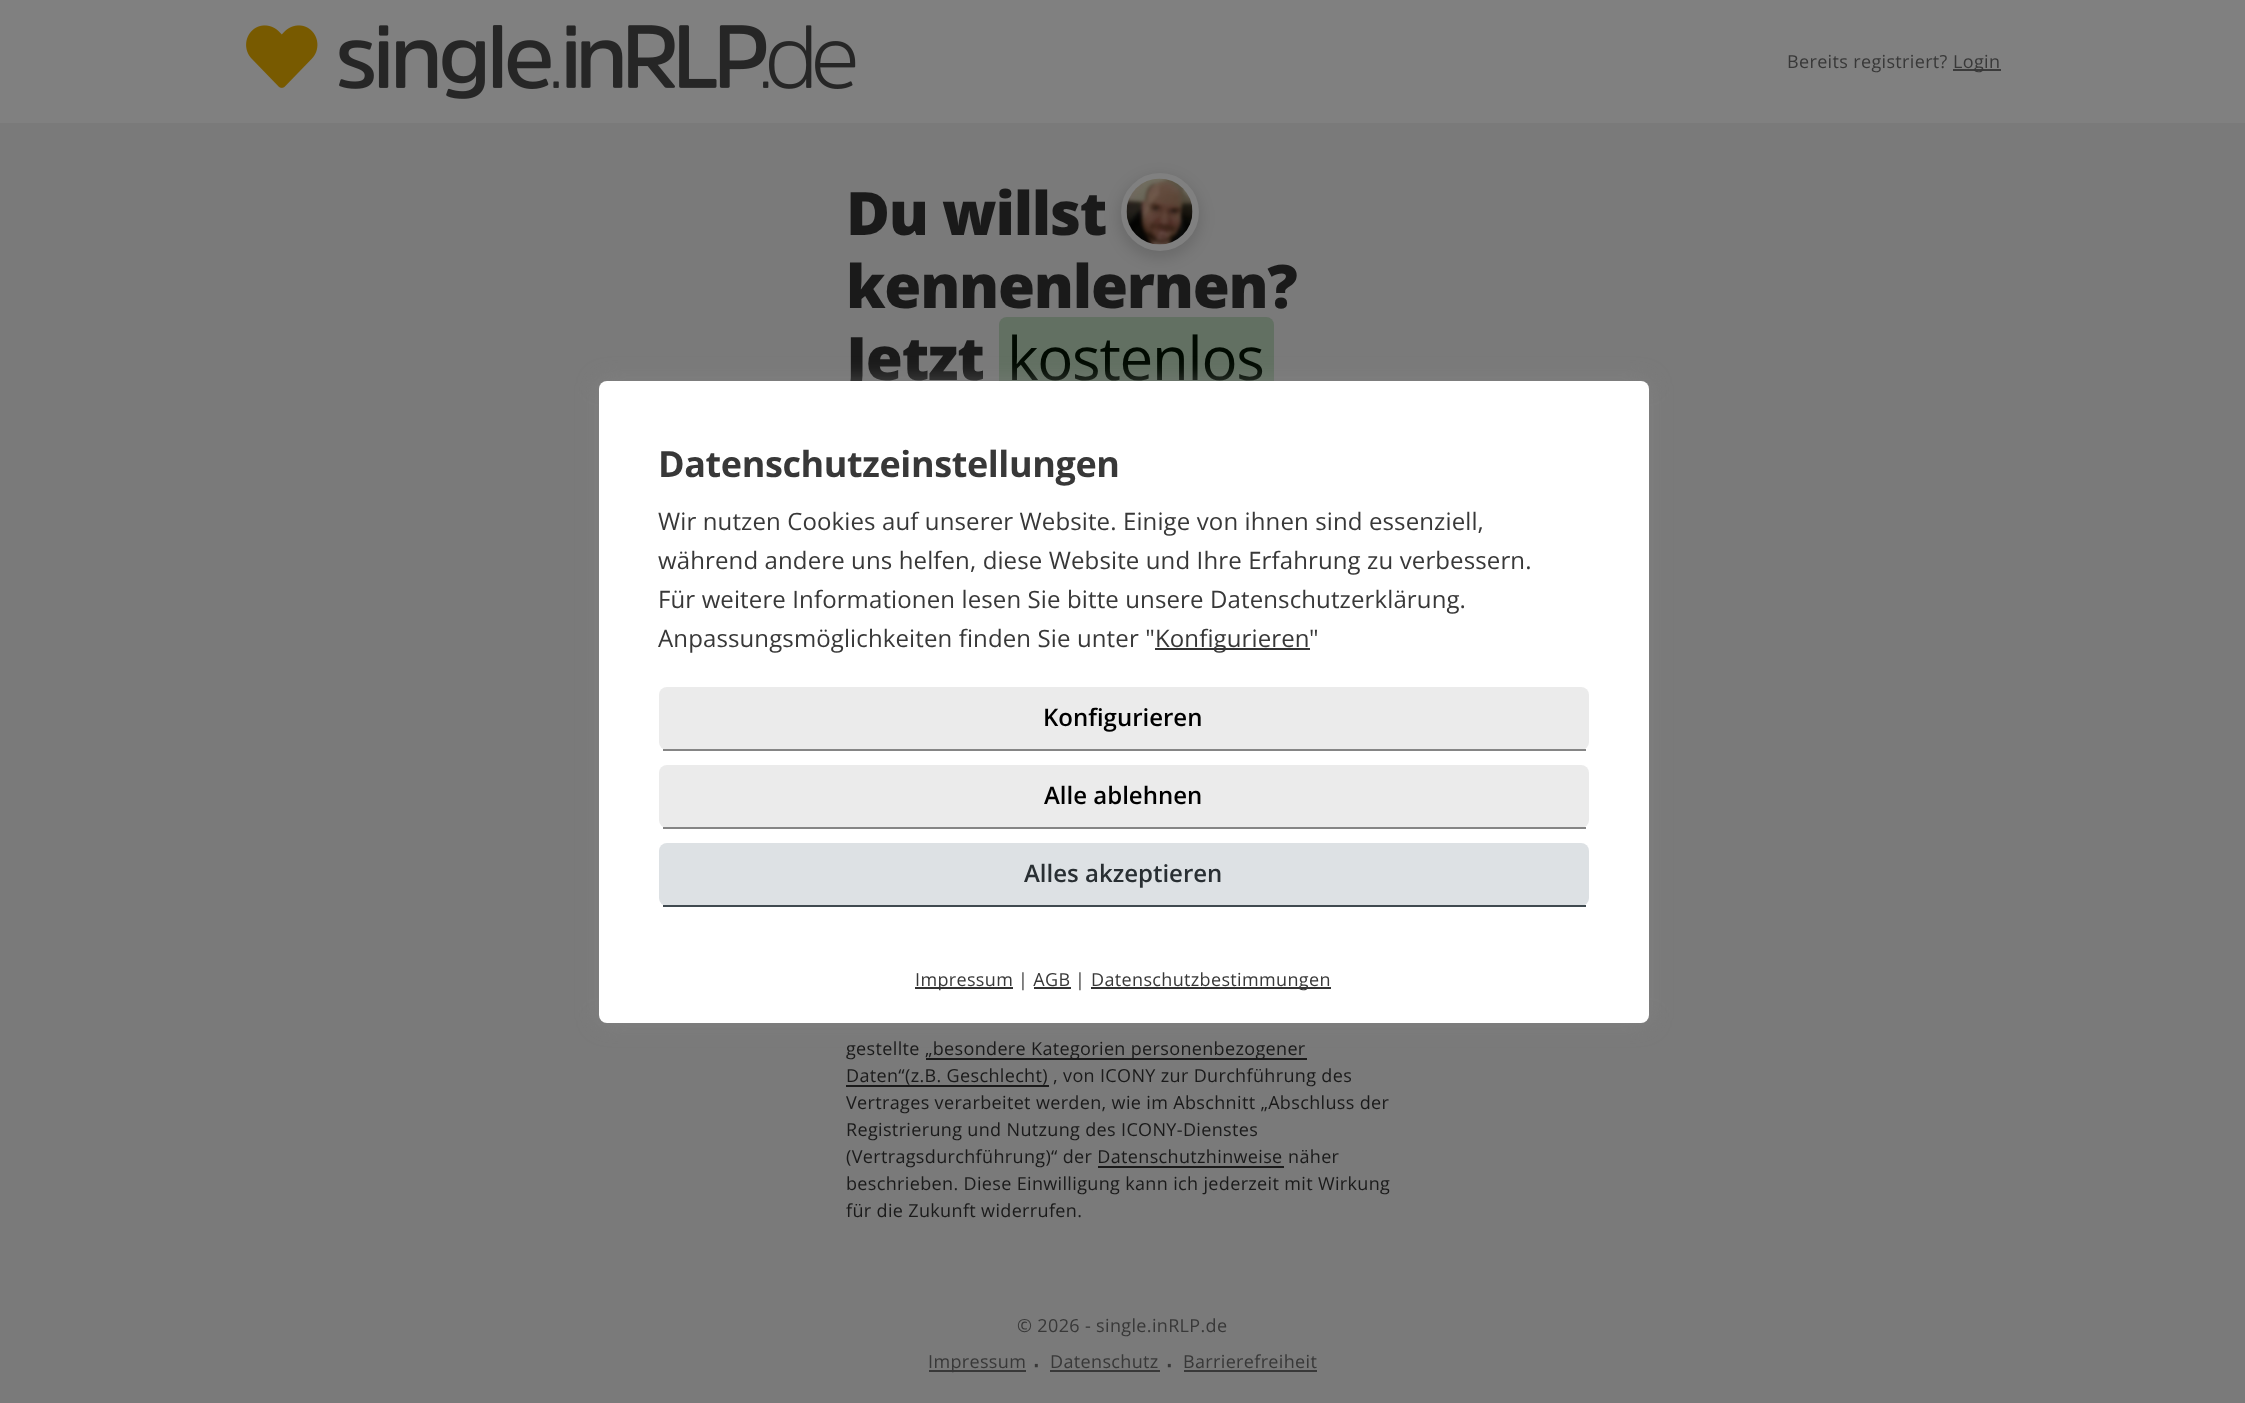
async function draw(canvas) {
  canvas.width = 2245
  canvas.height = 1403
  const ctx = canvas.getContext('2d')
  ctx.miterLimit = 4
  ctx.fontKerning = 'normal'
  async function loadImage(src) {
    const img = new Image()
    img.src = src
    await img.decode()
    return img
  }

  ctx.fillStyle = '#7a7a7a'
  ctx.fillRect(0, 0, 2245, 1403)
  ctx.fillStyle = '#808080'
  ctx.fillRect(0, 0, 2245, 123)
  ctx.drawImage(await loadImage('image0.png'), 246, 25, 610, 74)
  ctx.letterSpacing = '0.35px'
  ctx.font = '18px Open Sans'
  ctx.fillStyle = '#383838'
  ctx.fillText('Bereits registriert?', 1787, 68)
  ctx.fillStyle = '#3b3b3b'
  ctx.fillRect(1953, 69, 48, 2)
  ctx.fillStyle = '#383838'
  ctx.fillText('Login', 1953, 68)
  ctx.letterSpacing = '-1.25px'
  ctx.font = '800 60px Open Sans'
  ctx.fillStyle = '#1a1a1a'
  ctx.fillText('Du willst', 846, 235)
  ctx.fillStyle = '#00000024'
  ctx.filter = 'blur(7.5px)'
  ctx.beginPath()
  ctx.roundRect(1119, 177, 81, 81, 40.5)
  ctx.fill()
  ctx.filter = 'none'
  ctx.fillStyle = '#808080'
  ctx.beginPath()
  ctx.arc(1160, 212, 36, 0, 2 * Math.PI)
  ctx.fill()
  ctx.strokeStyle = '#808080'
  ctx.lineWidth = 6
  ctx.stroke()
  ctx.drawImage(await loadImage('image1.png'), 1126, 178, 67, 67)
  ctx.fillStyle = '#1a1a1a'
  ctx.fillText('kennenlernen?', 846, 308)
  ctx.fillText('Jetzt', 846, 380)
  ctx.fillStyle = '#627062'
  ctx.beginPath()
  ctx.roundRect(999, 317, 275, 82, 8)
  ctx.fill()
  ctx.font = '60px Open Sans'
  ctx.fillStyle = '#010a01'
  ctx.fillText('kostenlos', 1007, 380)
  ctx.letterSpacing = '0.35px'
  ctx.font = '18px Open Sans'
  ctx.fillStyle = '#1a1a1a'
  ctx.fillText('gestellte', 846, 1055)
  ctx.fillRect(926, 1058, 381, 2)
  ctx.fillText('„besondere Kategorien personenbezogener', 925, 1055)
  ctx.fillText('Daten“(z.B. Geschlecht)', 846, 1082)
  ctx.fillRect(846, 1085, 203, 2)
  ctx.fillText(', von ICONY zur Durchführung des', 1053, 1082)
  ctx.fillText('Vertrages verarbeitet werden, wie im Abschnitt „Abschluss der', 846, 1109)
  ctx.fillText('Registrierung und Nutzung des ICONY-Dienstes', 846, 1136)
  ctx.fillText('(Vertragsdurchführung)“ der Datenschutzhinweise', 846, 1163)
  ctx.fillText('näher', 1288, 1163)
  ctx.fillRect(1098, 1166, 186, 2)
  ctx.fillText('beschrieben. Diese Einwilligung kann ich jederzeit mit Wirkung', 846, 1190)
  ctx.fillText('für die Zukunft widerrufen.', 846, 1217)
  ctx.fillStyle = '#88888880'
  ctx.filter = 'blur(11px)'
  ctx.beginPath()
  ctx.roundRect(599, 381, 1050, 642, 8)
  ctx.fill()
  ctx.filter = 'none'
  ctx.fillStyle = '#fff'
  ctx.beginPath()
  ctx.roundRect(599, 381, 1050, 642, 8)
  ctx.fill()
  ctx.letterSpacing = '-0.4px'
  ctx.font = 'bold 36px Open Sans'
  ctx.fillStyle = '#383838'
  ctx.fillText('Datenschutzeinstellungen', 658, 477)
  ctx.letterSpacing = '0.12px'
  ctx.font = '24px Open Sans'
  ctx.fillText('Wir nutzen Cookies auf unserer Website. Einige von ihnen sind essenziell,', 658, 530)
  ctx.fillText('während andere uns helfen, diese Website und Ihre Erfahrung zu verbessern.', 658, 569)
  ctx.fillText('Für weitere Informationen lesen Sie bitte unsere Datenschutzerklärung.', 658, 608)
  ctx.fillText('Anpassungsmöglichkeiten finden Sie unter "', 658, 647)
  ctx.fillStyle = '#333'
  ctx.fillRect(1155, 648, 155, 2)
  ctx.fillStyle = '#383838'
  ctx.fillText('Konfigurieren', 1155, 647)
  ctx.fillText('"', 1309, 647)
  ctx.fillStyle = '#ebebeb'
  ctx.beginPath()
  ctx.roundRect(659, 687, 930, 63, 8)
  ctx.fill()
  ctx.fillStyle = '#858585'
  ctx.fillRect(663, 749, 923, 2)
  ctx.letterSpacing = '0px'
  ctx.font = '600 24px Open Sans'
  ctx.fillStyle = '#000'
  ctx.fillText('Konfigurieren', 1043, 726)
  ctx.fillStyle = '#ebebeb'
  ctx.beginPath()
  ctx.roundRect(659, 765, 930, 63, 8)
  ctx.fill()
  ctx.fillStyle = '#858585'
  ctx.fillRect(663, 827, 923, 2)
  ctx.fillStyle = '#000'
  ctx.fillText('Alle ablehnen', 1044, 804)
  ctx.fillStyle = '#dde1e4'
  ctx.beginPath()
  ctx.roundRect(659, 843, 930, 63, 8)
  ctx.fill()
  ctx.fillStyle = '#404a50'
  ctx.fillRect(663, 905, 923, 2)
  ctx.fillStyle = '#292f33'
  ctx.fillText('Alles akzeptieren', 1024, 882)
  ctx.fillStyle = '#333'
  ctx.fillRect(915, 987, 98, 2)
  ctx.letterSpacing = '0.35px'
  ctx.font = '18px Open Sans'
  ctx.fillStyle = '#383838'
  ctx.fillText('Impressum', 915, 986)
  ctx.fillText('| AGB', 1018, 986)
  ctx.fillText('|', 1075, 986)
  ctx.fillStyle = '#333'
  ctx.fillRect(1091, 987, 240, 2)
  ctx.fillStyle = '#383838'
  ctx.fillText('Datenschutzbestimmungen', 1091, 986)
  ctx.fillStyle = '#333'
  ctx.fillRect(1034, 987, 37, 2)
  ctx.fillStyle = '#383838'
  ctx.fillText('© 2026 - single.inRLP.de', 1017, 1332)
  ctx.fillRect(929, 1370, 97, 2)
  ctx.fillText('Impressum', 928, 1368)
  ctx.font = '31px Liberation Sans'
  ctx.fillText('∙', 1032, 1374)
  ctx.font = '18px Open Sans'
  ctx.fillText('Datenschutz', 1050, 1368)
  ctx.fillRect(1050, 1370, 110, 2)
  ctx.font = '31px Liberation Sans'
  ctx.fillText('∙', 1165, 1374)
  ctx.font = '18px Open Sans'
  ctx.fillText('Barrierefreiheit', 1183, 1368)
  ctx.fillRect(1184, 1370, 133, 2)
}

draw(document.querySelector('canvas'))
